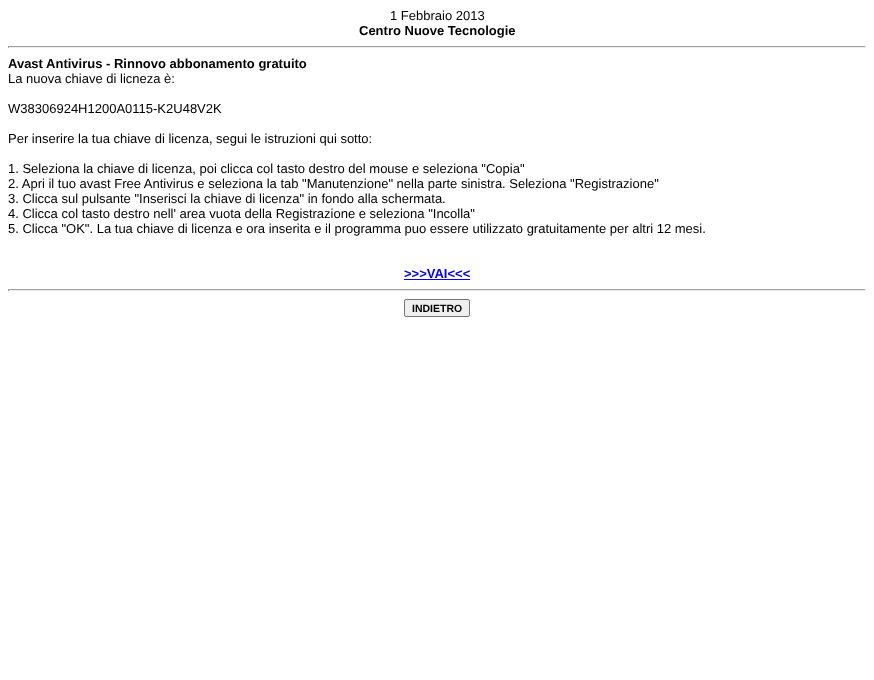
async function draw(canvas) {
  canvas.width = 874
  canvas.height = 680
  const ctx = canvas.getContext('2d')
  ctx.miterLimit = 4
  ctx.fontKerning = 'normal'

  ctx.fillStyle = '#fff'
  ctx.fillRect(0, 0, 874, 680)
  ctx.font = '13px Liberation Sans'
  ctx.fillStyle = '#000'
  ctx.fillText('1 Febbraio 2013', 390, 20)
  ctx.font = 'bold 13px Liberation Sans'
  ctx.fillText('Centro Nuove Tecnologie', 359, 35)
  ctx.fillStyle = '#9f9f9f'
  ctx.fillRect(8, 46, 858, 1)
  ctx.fillStyle = '#eee'
  ctx.fillRect(865, 46, 1, 2)
  ctx.fillRect(8, 47, 858, 1)
  ctx.fillStyle = '#9f9f9f'
  ctx.fillRect(8, 46, 1, 2)
  ctx.fillStyle = '#000'
  ctx.fillText('Avast Antivirus - Rinnovo abbonamento gratuito', 8, 68)
  ctx.font = '13px Liberation Sans'
  ctx.fillText('La nuova chiave di licneza è:', 8, 83)
  ctx.fillText('W38306924H1200A0115-K2U48V2K', 8, 113)
  ctx.fillText('Per inserire la tua chiave di licenza, segui le istruzioni qui sotto:', 8, 143)
  ctx.fillText('1. Seleziona la chiave di licenza, poi clicca col tasto destro del mouse e seleziona "Copia"', 8, 173)
  ctx.fillText('2. Apri il tuo avast Free Antivirus e seleziona la tab "Manutenzione" nella parte sinistra. Seleziona "Registrazione"', 8, 188)
  ctx.fillText('3. Clicca sul pulsante "Inserisci la chiave di licenza" in fondo alla schermata.', 8, 203)
  ctx.fillText('4. Clicca col tasto destro nell\' area vuota della Registrazione e seleziona "Incolla"', 8, 218)
  ctx.fillText('5. Clicca "OK". La tua chiave di licenza e ora inserita e il programma puo essere utilizzato gratuitamente per altri 12 mesi.', 8, 233)
  ctx.font = 'bold 13px Liberation Sans'
  ctx.fillStyle = '#00e'
  ctx.fillText('>>>VAI<<<', 404, 278)
  ctx.fillRect(404, 279, 66, 1)
  ctx.fillStyle = '#9f9f9f'
  ctx.fillRect(8, 289, 858, 1)
  ctx.fillStyle = '#eee'
  ctx.fillRect(865, 289, 1, 2)
  ctx.fillRect(8, 290, 858, 1)
  ctx.fillStyle = '#9f9f9f'
  ctx.fillRect(8, 289, 1, 2)
  ctx.fillStyle = '#efefef'
  ctx.beginPath()
  ctx.roundRect(404.5, 299.5, 65, 17, 1.5)
  ctx.fill()
  ctx.strokeStyle = '#767676'
  ctx.stroke()
  ctx.font = 'bold 10.5px Liberation Sans'
  ctx.fillStyle = '#000'
  ctx.fillText('INDIETRO', 412, 312)
}

draw(document.querySelector('canvas'))
